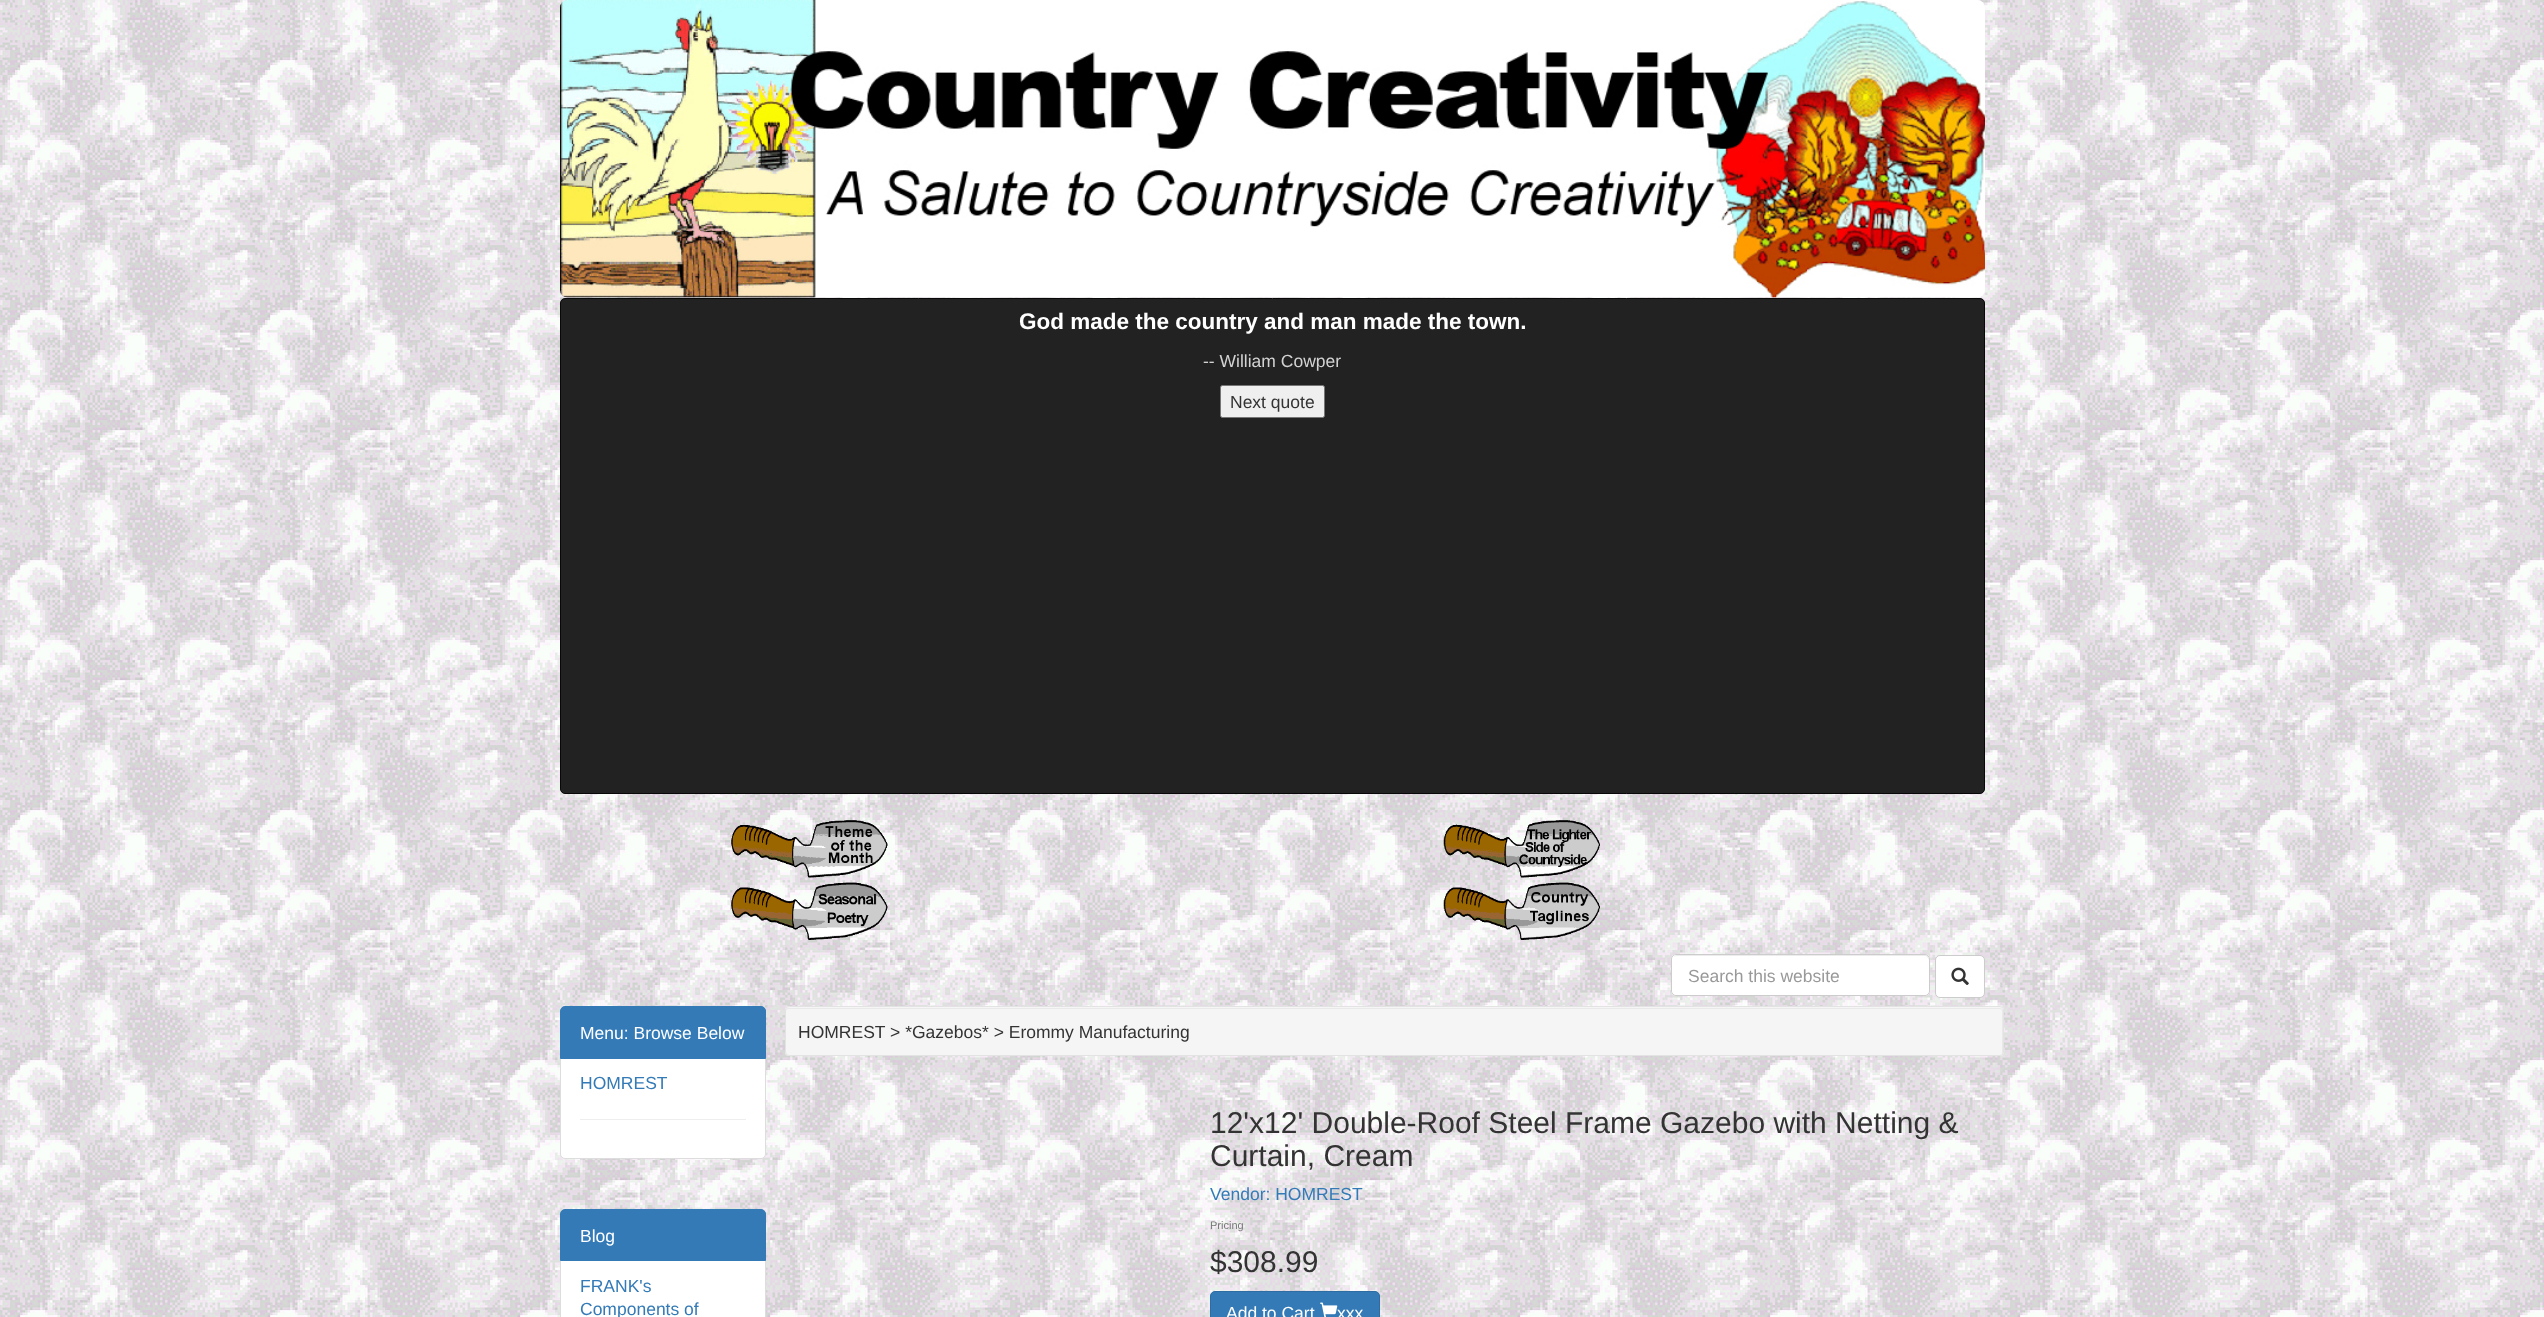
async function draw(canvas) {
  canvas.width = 2544
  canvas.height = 1317
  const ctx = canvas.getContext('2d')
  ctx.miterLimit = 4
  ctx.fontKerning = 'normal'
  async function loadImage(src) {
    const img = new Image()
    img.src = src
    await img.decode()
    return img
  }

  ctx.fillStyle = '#fff'
  ctx.fillRect(0, 0, 2544, 1317)
  ctx.drawImage(await loadImage('image0.png'), 0, 0, 2544, 1317)
  ctx.drawImage(await loadImage('image1.png'), 560, 0, 1425, 298)
  ctx.fillStyle = '#222'
  ctx.beginPath()
  ctx.roundRect(560.5, 298.5, 1424, 495, 4.5)
  ctx.fill()
  ctx.strokeStyle = '#080808'
  ctx.stroke()
  ctx.font = 'bold 22.5px Liberation Sans'
  ctx.fillStyle = '#fff'
  ctx.fillText('God made the country and man made the town.', 1019, 329)
  ctx.font = '17.5px Liberation Sans'
  ctx.fillStyle = '#d3d3d3'
  ctx.fillText('-- William Cowper', 1203, 367)
  ctx.fillStyle = '#efefef'
  ctx.beginPath()
  ctx.roundRect(1220.5, 385.5, 104, 32, 2)
  ctx.fill()
  ctx.strokeStyle = '#767676'
  ctx.stroke()
  ctx.fillStyle = '#333'
  ctx.fillText('Next quote', 1230, 408)
  ctx.drawImage(await loadImage('image2.png'), 731, 820, 157, 58)
  ctx.drawImage(await loadImage('image3.png'), 1443, 820, 157, 58)
  ctx.drawImage(await loadImage('image4.png'), 731, 882, 157, 58)
  ctx.drawImage(await loadImage('image5.png'), 1443, 882, 157, 58)
  ctx.fillStyle = '#fff'
  ctx.beginPath()
  ctx.roundRect(1671, 954, 259, 42, 5)
  ctx.fill()
  ctx.fillStyle = '#ececec'
  ctx.beginPath()
  ctx.moveTo(1676, 956)
  ctx.lineTo(1926, 956)
  ctx.lineTo(1928, 958)
  ctx.lineTo(1929, 960)
  ctx.lineTo(1929, 959)
  ctx.bezierCurveTo(1929, 957, 1927, 955, 1925, 955)
  ctx.lineTo(1677, 955)
  ctx.bezierCurveTo(1676, 955, 1674, 956, 1674, 957)
  ctx.closePath()
  ctx.fill()
  ctx.beginPath()
  ctx.roundRect(1671.5, 954.5, 258, 41, 4.5)
  ctx.strokeStyle = '#ccc'
  ctx.stroke()
  ctx.fillStyle = '#999'
  ctx.fillText('Search this website', 1688, 982)
  ctx.fillStyle = '#fff'
  ctx.beginPath()
  ctx.roundRect(1935.5, 955.5, 49, 42, 4.5)
  ctx.fill()
  ctx.stroke()
  ctx.drawImage(await loadImage('image6.png'), 1951, 967, 18, 18)
  ctx.beginPath()
  ctx.roundRect(560.5, 1058.5, 205, 100, [0, 0, 4.5, 4.5])
  ctx.fill()
  ctx.strokeStyle = '#ddd'
  ctx.stroke()
  ctx.fillStyle = '#337ab7'
  ctx.beginPath()
  ctx.roundRect(560.5, 1006.5, 205, 52, [4.5, 4.5, 0, 0])
  ctx.fill()
  ctx.strokeStyle = '#337ab7'
  ctx.stroke()
  ctx.fillStyle = '#fff'
  ctx.fillText('Menu: Browse Below', 580, 1039)
  ctx.fillStyle = '#337ab7'
  ctx.fillText('HOMREST', 580, 1089)
  ctx.fillStyle = '#eee'
  ctx.fillRect(580, 1119, 166, 1)
  ctx.fillStyle = '#fff'
  ctx.beginPath()
  ctx.rect(560.5, 1260.5, 205, 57)
  ctx.fill()
  ctx.strokeStyle = '#ddd'
  ctx.stroke()
  ctx.fillStyle = '#337ab7'
  ctx.beginPath()
  ctx.roundRect(560.5, 1209.5, 205, 51, [4.5, 4.5, 0, 0])
  ctx.fill()
  ctx.strokeStyle = '#337ab7'
  ctx.stroke()
  ctx.fillStyle = '#fff'
  ctx.fillText('Blog', 580, 1242)
  ctx.fillStyle = '#337ab7'
  ctx.fillText('FRANK\'s', 580, 1292)
  ctx.fillText('Components of', 580, 1315)
  ctx.fillStyle = '#f5f5f5'
  ctx.beginPath()
  ctx.roundRect(785, 1006, 1219, 50, 4)
  ctx.fill()
  ctx.fillStyle = '#e9e9e9'
  ctx.beginPath()
  ctx.moveTo(789, 1009)
  ctx.lineTo(2000, 1009)
  ctx.bezierCurveTo(2001, 1009, 2002, 1010, 2002, 1011)
  ctx.lineTo(2002, 1055)
  ctx.lineTo(2003, 1053)
  ctx.lineTo(2003, 1010)
  ctx.lineTo(2002, 1009)
  ctx.lineTo(2000, 1008)
  ctx.lineTo(788, 1008)
  ctx.bezierCurveTo(787, 1008, 786, 1009, 786, 1011)
  ctx.bezierCurveTo(786, 1010, 787, 1009, 789, 1009)
  ctx.closePath()
  ctx.fill()
  ctx.beginPath()
  ctx.roundRect(785.5, 1006.5, 1218, 49, 3.5)
  ctx.strokeStyle = '#e3e3e3'
  ctx.stroke()
  ctx.fillStyle = '#333'
  ctx.fillText('HOMREST > *Gazebos* > Erommy Manufacturing', 798, 1038)
  ctx.font = '30px Liberation Sans'
  ctx.fillText('12\'x12\' Double-Roof Steel Frame Gazebo with Netting &', 1210, 1133)
  ctx.fillText('Curtain, Cream', 1210, 1166)
  ctx.font = '17.5px Liberation Sans'
  ctx.fillStyle = '#337ab7'
  ctx.fillText('Vendor: HOMREST', 1210, 1200)
  ctx.font = '11px Liberation Sans'
  ctx.fillStyle = '#777'
  ctx.fillText('Pricing', 1210, 1229)
  ctx.font = '30px Liberation Sans'
  ctx.fillStyle = '#333'
  ctx.fillText('$308.99', 1210, 1272)
  ctx.fillStyle = '#337ab7'
  ctx.beginPath()
  ctx.roundRect(1210.5, 1291.5, 169, 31, 4.5)
  ctx.fill()
  ctx.strokeStyle = '#2e6da4'
  ctx.stroke()
  ctx.font = '17.5px Liberation Sans'
  ctx.fillStyle = '#fff'
  ctx.fillText('Add to Cart', 1226, 1319)
  ctx.fillText('xxx', 1337, 1319)
  ctx.drawImage(await loadImage('image7.png'), 1320, 1302, 18, 15)
}

draw(document.querySelector('canvas'))
